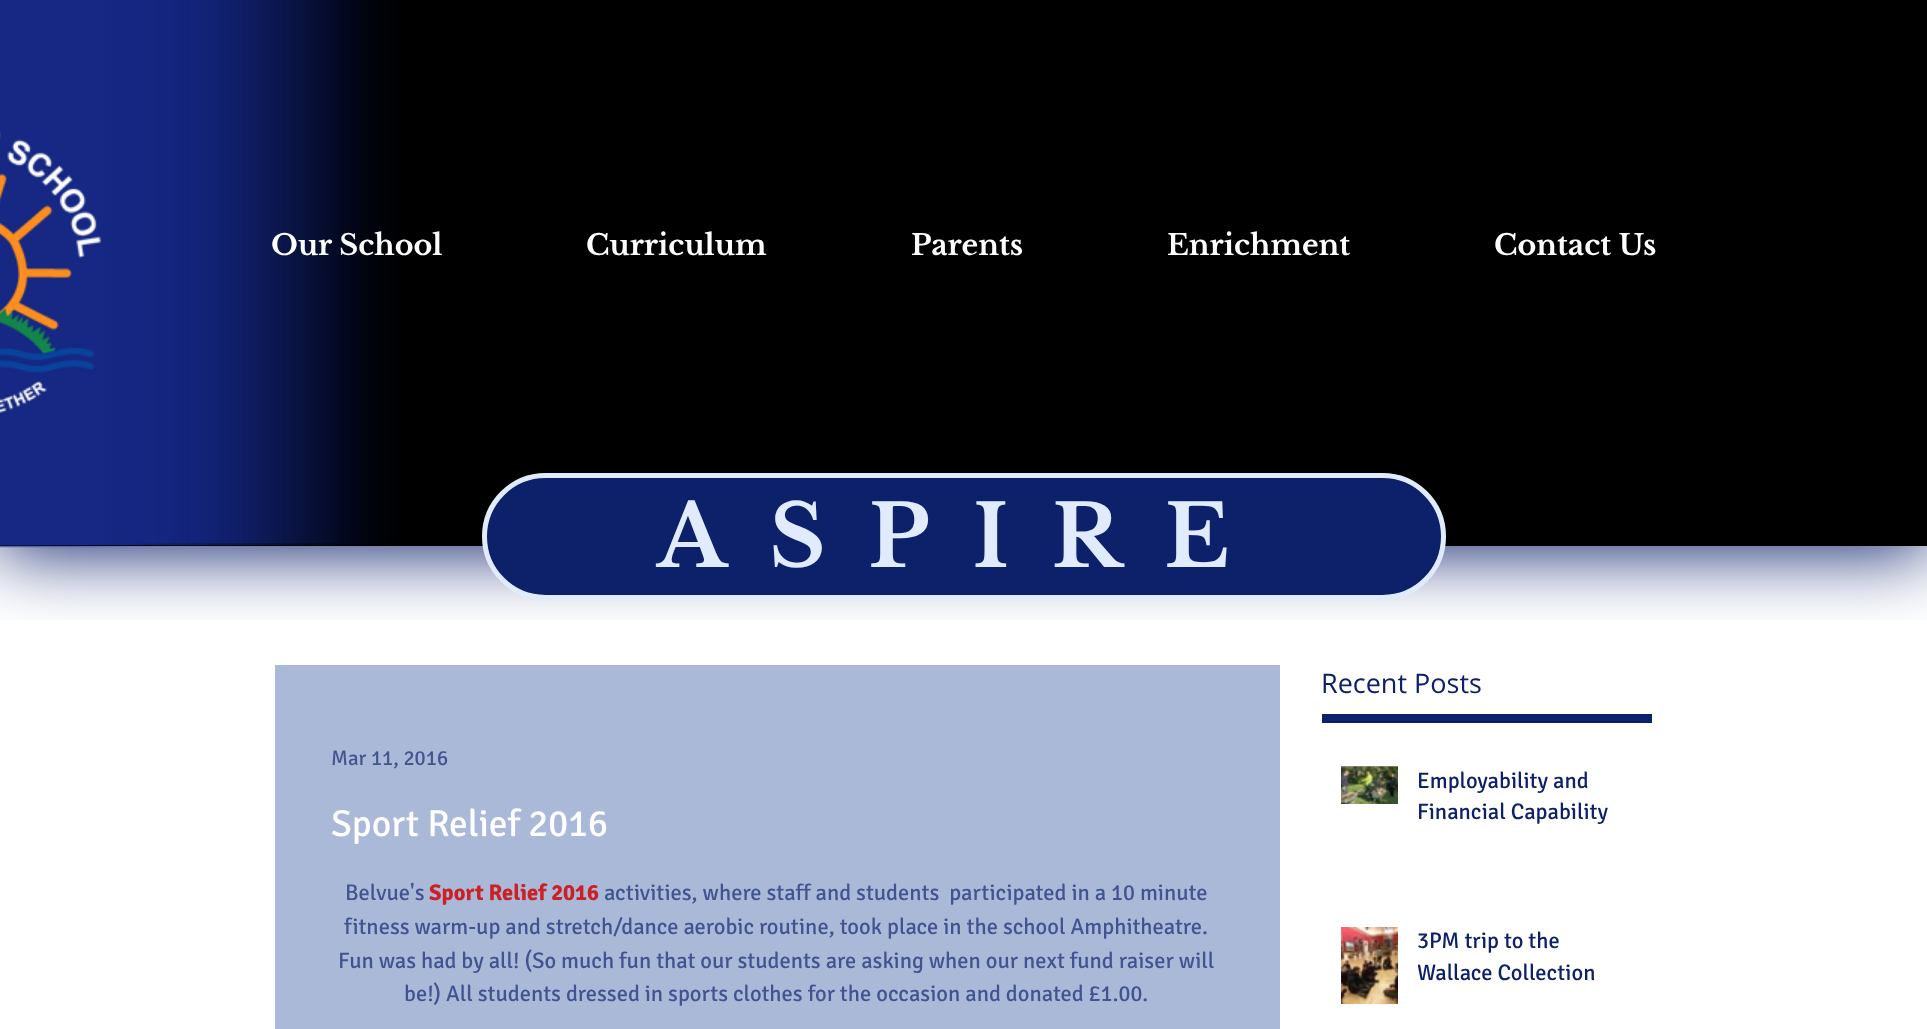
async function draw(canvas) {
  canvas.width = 1927
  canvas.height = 1029
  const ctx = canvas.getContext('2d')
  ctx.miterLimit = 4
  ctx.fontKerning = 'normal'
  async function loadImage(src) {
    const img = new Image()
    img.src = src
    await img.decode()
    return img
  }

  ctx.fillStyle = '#fff'
  ctx.fillRect(0, 0, 1927, 1029)
  ctx.fillStyle = '#0d216b'
  ctx.filter = 'blur(37.5px)'
  ctx.beginPath()
  ctx.rect(-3, 0, 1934, 552)
  ctx.fill()
  ctx.filter = 'none'
  ctx.fillStyle = '#000'
  ctx.fillRect(0, 0, 1927, 546)
  ctx.drawImage(await loadImage('image0.png'), 0, 0, 152, 548)
  ctx.drawImage(await loadImage('image2.png'), 112, 0, 142, 543)
  ctx.drawImage(await loadImage('image4.png'), 112, 0, 250, 543)
  ctx.drawImage(await loadImage('image1.png'), 0, 0, 397, 546)
  ctx.drawImage(await loadImage('image3.png'), 0, 132, 101, 281)
  ctx.font = 'bold 28.5px Libre Baskerville'
  ctx.fillStyle = '#fff'
  ctx.fillText('Our School', 271, 255)
  ctx.fillText('Curriculum', 586, 255)
  ctx.fillText('Parents', 911, 255)
  ctx.fillText('Enrichment', 1167, 255)
  ctx.fillText('Contact Us', 1494, 255)
  ctx.fillStyle = '#0d216b'
  ctx.beginPath()
  ctx.roundRect(484.5, 475.5, 959, 122, 61)
  ctx.fill()
  ctx.strokeStyle = '#e0ecfd'
  ctx.lineWidth = 5
  ctx.stroke()
  ctx.letterSpacing = '42.75px'
  ctx.font = 'bold 85.5px Libre Baskerville'
  ctx.fillStyle = '#e0ecfd'
  ctx.fillText('ASPIRE', 657, 567)
  ctx.fillStyle = '#fff'
  ctx.fillRect(0, 620, 1927, 19)
  ctx.letterSpacing = '0px'
  ctx.font = '27px Open Sans'
  ctx.fillStyle = '#0d216b'
  ctx.fillText('Recent Posts', 1321, 693)
  ctx.fillRect(1322, 714, 330, 9)
  ctx.fillStyle = '#abb9d9'
  ctx.fillRect(275, 665, 1005, 364)
  ctx.font = '21px Signika'
  ctx.fillStyle = '#425490'
  ctx.fillText('Mar 11, 2016', 331, 765)
  ctx.font = '37.5px Signika'
  ctx.fillStyle = '#fff'
  ctx.fillText('Sport Relief 2016', 331, 836)
  ctx.font = '22.5px Signika'
  ctx.fillStyle = '#425490'
  ctx.fillText('Belvue\'s', 345, 900)
  ctx.font = 'bold 22.5px Signika'
  ctx.fillStyle = '#cb2026'
  ctx.fillText('Sport Relief 2016', 429, 900)
  ctx.font = '22.5px Signika'
  ctx.fillStyle = '#425490'
  ctx.fillText('activities, where staff and students  participated in a 10 minute', 604, 900)
  ctx.fillText('fitness warm-up and stretch/dance aerobic routine, took place in the school Amphitheatre.', 344, 934)
  ctx.fillText('Fun was had by all! (So much fun that our students are asking when our next fund raiser will', 338, 968)
  ctx.fillText('be!) All students dressed in sports clothes for the occasion and donated £1.00.', 404, 1001)
  ctx.drawImage(await loadImage('image5.png'), 1341, 766, 57, 1)
  ctx.drawImage(await loadImage('image6.png'), 1341, 766, 57, 38)
  ctx.fillStyle = '#0d216b'
  ctx.fillText('Employability and', 1417, 788)
  ctx.fillText('Financial Capability', 1417, 819)
  ctx.drawImage(await loadImage('image7.png'), 1341, 927, 57, 77)
  ctx.fillText('3PM trip to the', 1417, 948)
  ctx.save()
  ctx.beginPath()
  ctx.rect(1418, 926, 216, 63)
  ctx.clip()
  ctx.fillText('Wallace Collection', 1417, 980)
  ctx.restore()
}

draw(document.querySelector('canvas'))
